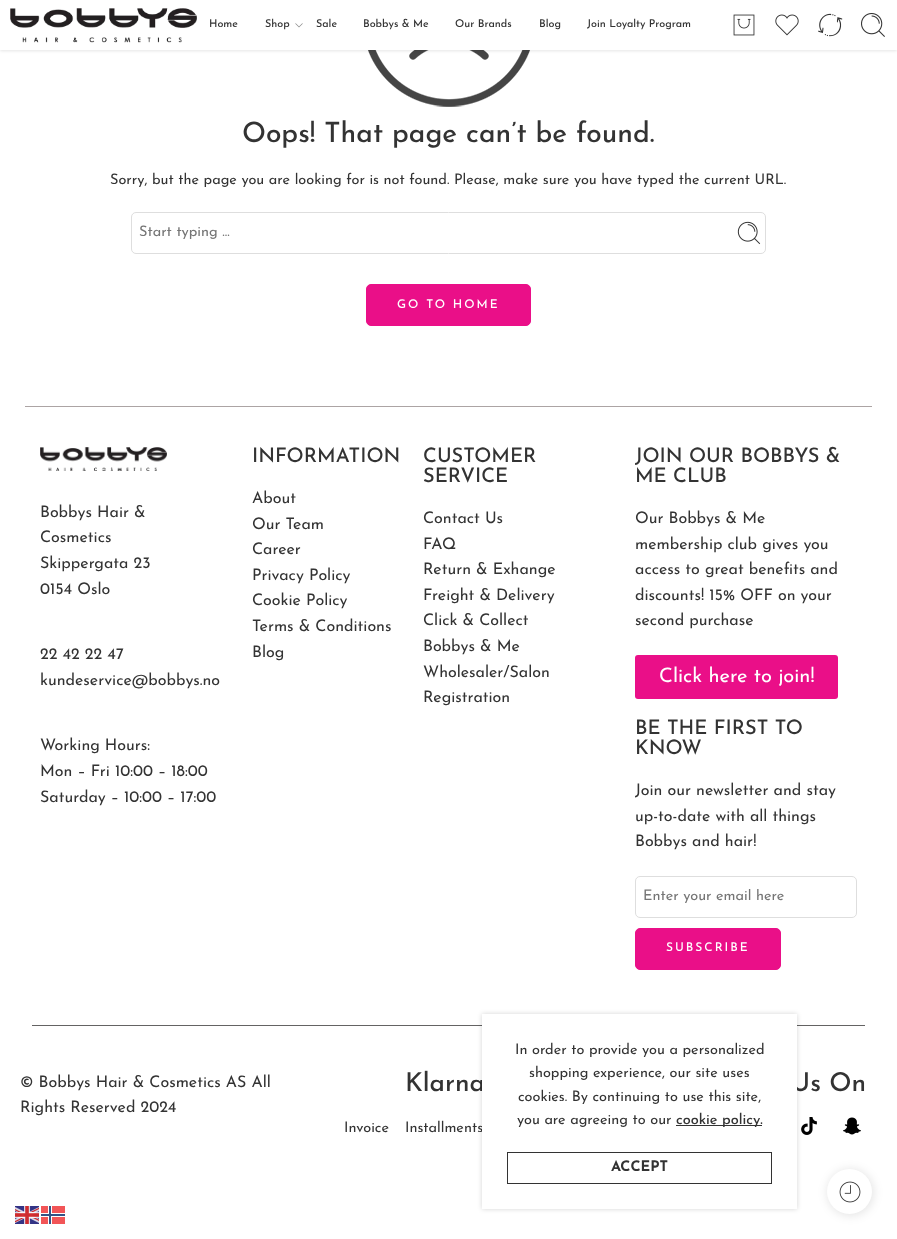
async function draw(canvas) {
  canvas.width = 897
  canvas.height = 1239
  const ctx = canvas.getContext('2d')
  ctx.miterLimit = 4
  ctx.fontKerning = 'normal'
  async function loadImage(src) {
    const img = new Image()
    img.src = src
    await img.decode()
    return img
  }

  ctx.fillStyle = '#fff'
  ctx.fillRect(0, 0, 897, 1239)
  ctx.drawImage(await loadImage('image6.png'), 368, 50, 162, 57)
  ctx.fillStyle = '#0000001a'
  ctx.filter = 'blur(1.5px)'
  ctx.beginPath()
  ctx.rect(0, 1, 897, 50)
  ctx.fill()
  ctx.filter = 'none'
  ctx.fillStyle = '#fff'
  ctx.fillRect(0, 0, 897, 50)
  ctx.drawImage(await loadImage('image0.png'), 10, 8, 187, 35)
  ctx.font = '500 10.75px Josefin Sans'
  ctx.fillStyle = '#333'
  ctx.fillText('Home', 209, 27)
  ctx.fillText('Shop', 265, 27)
  ctx.drawImage(await loadImage('image1.png'), 295, 23, 8, 5)
  ctx.fillText('Sale', 316, 27)
  ctx.fillText('Bobbys & Me', 363, 27)
  ctx.fillText('Our Brands', 455, 27)
  ctx.fillText('Blog', 539, 27)
  ctx.fillText('Join Loyalty Program', 587, 27)
  ctx.drawImage(await loadImage('image2.png'), 733, 14, 22, 22)
  ctx.drawImage(await loadImage('image3.png'), 775, 14, 24, 22)
  ctx.drawImage(await loadImage('image4.png'), 818, 13, 25, 24)
  ctx.drawImage(await loadImage('image5.png'), 861, 13, 24, 24)
  ctx.font = '500 28px Josefin Sans'
  ctx.fillText('Oops! That page can’t be found.', 242, 142)
  ctx.font = '14.5px Josefin Sans'
  ctx.fillText('Sorry, but the page you are looking for is not found. Please, make sure you have typed the current URL.', 110, 184)
  ctx.beginPath()
  ctx.roundRect(131.5, 212.5, 634, 41, 4.5)
  ctx.strokeStyle = '#dedede'
  ctx.stroke()
  ctx.fillStyle = '#757575'
  ctx.fillText('Start typing ...', 139, 236)
  ctx.drawImage(await loadImage('image7.png'), 737, 221, 24, 24)
  ctx.fillStyle = '#ea0f88'
  ctx.beginPath()
  ctx.roundRect(366.5, 284.5, 164, 41, 4.5)
  ctx.fill()
  ctx.strokeStyle = '#ea0f88'
  ctx.stroke()
  ctx.letterSpacing = '2px'
  ctx.font = '500 12px Josefin Sans'
  ctx.fillStyle = '#fff'
  ctx.fillText('GO TO HOME', 397, 308)
  ctx.fillStyle = '#aca4a4'
  ctx.fillRect(25, 406, 847, 1)
  ctx.drawImage(await loadImage('image8.png'), 40, 447, 127, 24)
  ctx.letterSpacing = '0px'
  ctx.font = '16px Josefin Sans'
  ctx.fillStyle = '#333'
  ctx.fillText('Bobbys Hair &', 40, 517)
  ctx.fillText('Cosmetics', 40, 542)
  ctx.fillText('Skippergata 23', 40, 568)
  ctx.fillText('0154 Oslo', 40, 594)
  ctx.fillText('22 42 22 47', 40, 659)
  ctx.fillText('kundeservice@bobbys.no', 40, 685)
  ctx.fillText('Working Hours:', 40, 750)
  ctx.fillText('Mon – Fri 10:00 – 18:00', 40, 776)
  ctx.fillText('Saturday – 10:00 – 17:00', 40, 802)
  ctx.font = '500 20px Josefin Sans'
  ctx.fillText('INFORMATION', 252, 462)
  ctx.font = '16px Josefin Sans'
  ctx.fillText('About', 252, 503)
  ctx.fillText('Our Team', 252, 529)
  ctx.fillText('Career', 252, 554)
  ctx.fillText('Privacy Policy', 252, 580)
  ctx.fillText('Cookie Policy', 252, 605)
  ctx.fillText('Terms & Conditions', 252, 631)
  ctx.fillText('Blog', 252, 657)
  ctx.font = '500 20px Josefin Sans'
  ctx.fillText('CUSTOMER', 423, 462)
  ctx.fillText('SERVICE', 423, 482)
  ctx.font = '16px Josefin Sans'
  ctx.fillText('Contact Us', 423, 523)
  ctx.fillText('FAQ', 423, 549)
  ctx.fillText('Return & Exhange', 423, 574)
  ctx.fillText('Freight & Delivery', 423, 600)
  ctx.fillText('Click & Collect', 423, 625)
  ctx.fillText('Bobbys & Me', 423, 651)
  ctx.fillText('Wholesaler/Salon', 423, 677)
  ctx.fillText('Registration', 423, 702)
  ctx.font = '500 20px Josefin Sans'
  ctx.fillText('JOIN OUR BOBBYS &', 635, 462)
  ctx.fillText('ME CLUB', 635, 482)
  ctx.font = '16px Josefin Sans'
  ctx.fillText('Our Bobbys & Me', 635, 523)
  ctx.fillText('membership club gives you', 635, 549)
  ctx.fillText('access to great benefits and', 635, 574)
  ctx.fillText('discounts! 15% OFF on your', 635, 600)
  ctx.fillText('second purchase', 635, 625)
  ctx.fillStyle = '#ea0f88'
  ctx.beginPath()
  ctx.roundRect(635, 655, 203, 44, 3)
  ctx.fill()
  ctx.font = '20px Josefin Sans'
  ctx.fillStyle = '#fff'
  ctx.fillText('Click here to join!', 659, 682)
  ctx.font = '500 20px Josefin Sans'
  ctx.fillStyle = '#333'
  ctx.fillText('BE THE FIRST TO', 635, 734)
  ctx.fillText('KNOW', 635, 754)
  ctx.font = '16px Josefin Sans'
  ctx.fillText('Join our newsletter and stay', 635, 795)
  ctx.fillText('up-to-date with all things', 635, 821)
  ctx.fillText('Bobbys and hair!', 635, 846)
  ctx.beginPath()
  ctx.roundRect(635.5, 876.5, 221, 41, 4.5)
  ctx.strokeStyle = '#dedede'
  ctx.stroke()
  ctx.save()
  ctx.beginPath()
  ctx.rect(643, 889, 206, 15)
  ctx.clip()
  ctx.font = '14.5px Josefin Sans'
  ctx.fillStyle = '#757575'
  ctx.fillText('Enter your email here', 643, 900)
  ctx.restore()
  ctx.fillStyle = '#ea0f88'
  ctx.beginPath()
  ctx.roundRect(635.5, 928.5, 145, 41, 4.5)
  ctx.fill()
  ctx.strokeStyle = '#ea0f88'
  ctx.stroke()
  ctx.letterSpacing = '2px'
  ctx.font = '500 12px Josefin Sans'
  ctx.fillStyle = '#fff'
  ctx.fillText('SUBSCRIBE', 666, 951)
  ctx.fillStyle = '#646363'
  ctx.fillRect(32, 1025, 833, 1)
  ctx.letterSpacing = '0px'
  ctx.font = '16px Josefin Sans'
  ctx.fillStyle = '#333'
  ctx.fillText('© Bobbys Hair & Cosmetics AS All', 20, 1087)
  ctx.fillText('Rights Reserved 2024', 20, 1112)
  ctx.font = '500 26px Josefin Sans'
  ctx.fillText('Klarna', 405, 1091)
  ctx.font = '14.5px Josefin Sans'
  ctx.fillText('Invoice', 344, 1132)
  ctx.fillText('Installments', 405, 1132)
  ctx.font = '500 26px Josefin Sans'
  ctx.fillText('Us On', 791, 1091)
  ctx.drawImage(await loadImage('image9.png'), 801, 1117, 16, 18)
  ctx.drawImage(await loadImage('image10.png'), 843, 1117, 18, 18)
  ctx.fillStyle = '#0000002b'
  ctx.filter = 'blur(2.5px)'
  ctx.beginPath()
  ctx.rect(482, 1014, 315, 195)
  ctx.fill()
  ctx.filter = 'none'
  ctx.fillStyle = '#fff'
  ctx.fillRect(482, 1014, 315, 195)
  ctx.font = '14.5px Josefin Sans'
  ctx.fillStyle = '#333'
  ctx.fillText('In order to provide you a personalized', 515, 1054)
  ctx.fillText('shopping experience, our site uses', 529, 1077)
  ctx.fillText('cookies. By continuing to use this site,', 518, 1101)
  ctx.fillText('you are agreeing to our', 517, 1124)
  ctx.fillRect(676, 1125, 86, 1)
  ctx.font = '500 14.5px Josefin Sans'
  ctx.fillText('cookie policy.', 676, 1124)
  ctx.strokeStyle = '#333'
  ctx.strokeRect(507.5, 1152.5, 264, 31)
  ctx.font = 'bold 14.5px Josefin Sans'
  ctx.fillText('ACCEPT', 611, 1171)
  ctx.drawImage(await loadImage('image11.png'), 15, 1206, 24, 18)
  ctx.fillStyle = '#f25557'
  ctx.fillRect(41, 1206, 24, 18)
  ctx.fillStyle = '#fff'
  ctx.fillRect(48, 1206, 4, 18)
  ctx.fillRect(41, 1213, 24, 4)
  ctx.fillStyle = '#335386'
  ctx.fillRect(49, 1206, 2, 18)
  ctx.fillRect(41, 1214, 24, 2)
  ctx.fillStyle = '#0000001a'
  ctx.filter = 'blur(5px)'
  ctx.beginPath()
  ctx.roundRect(827, 1169, 47, 47, 23.5)
  ctx.fill()
  ctx.filter = 'none'
  ctx.fillStyle = '#fff'
  ctx.beginPath()
  ctx.arc(849.5, 1191.5, 22.5, 0, 2 * Math.PI)
  ctx.fill()
  ctx.drawImage(await loadImage('image12.png'), 839, 1181, 22, 22)
}

draw(document.querySelector('canvas'))
